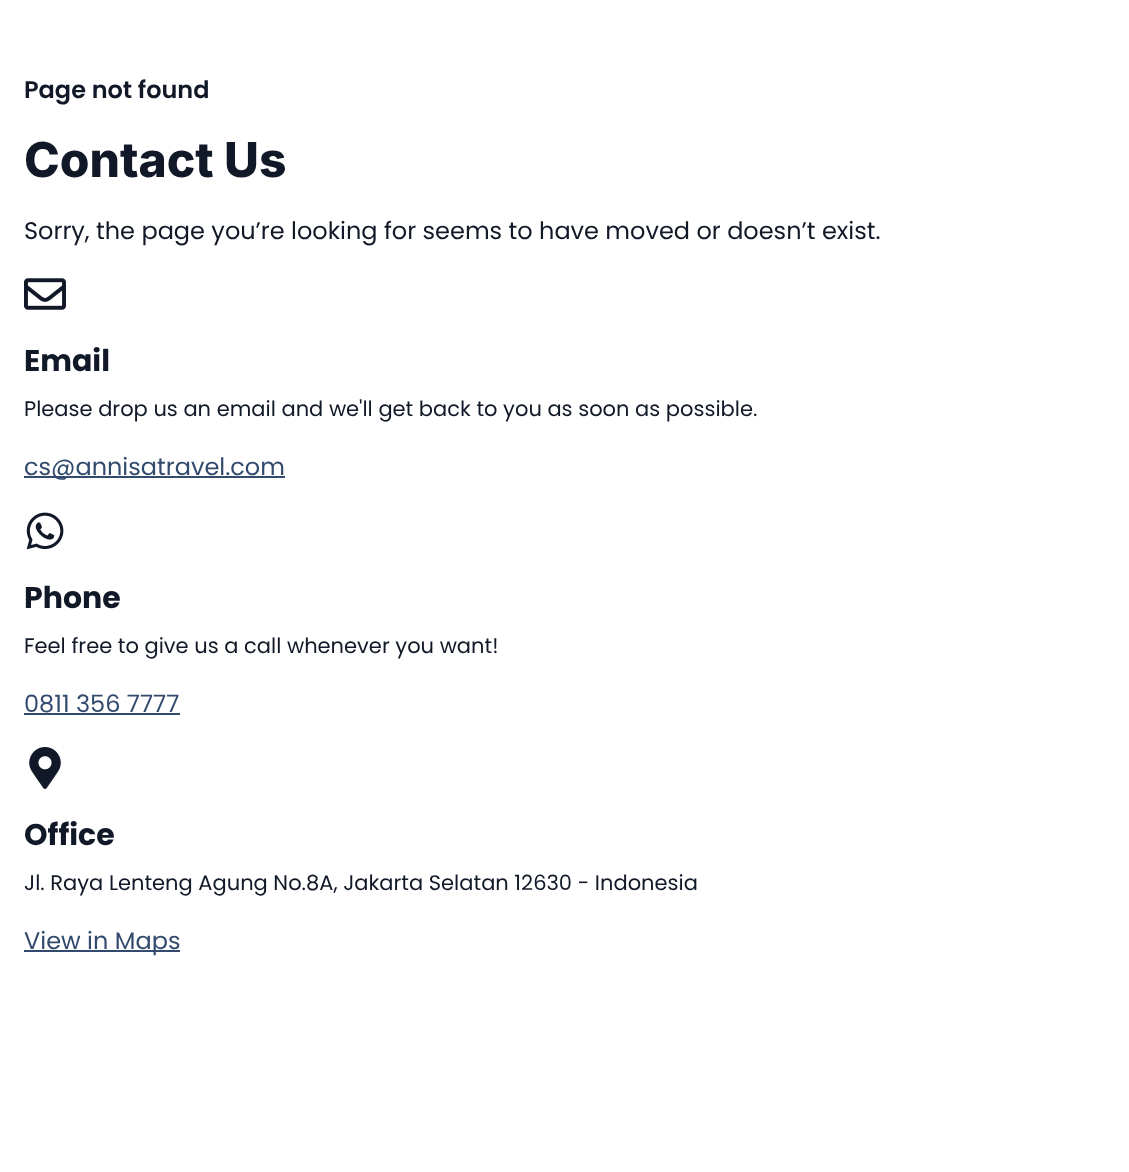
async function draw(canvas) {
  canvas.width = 1129
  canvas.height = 1172
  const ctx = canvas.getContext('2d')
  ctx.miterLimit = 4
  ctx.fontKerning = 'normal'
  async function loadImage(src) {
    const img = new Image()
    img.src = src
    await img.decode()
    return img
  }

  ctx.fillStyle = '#fff'
  ctx.fillRect(0, 0, 1129, 1172)
  ctx.font = '600 24px Poppins'
  ctx.fillStyle = '#111827'
  ctx.fillText('Page not found', 24, 98)
  ctx.font = '800 48px Inter'
  ctx.fillText('Contact Us', 24, 177)
  ctx.font = '24px Poppins'
  ctx.fillText('Sorry, the page you’re looking for seems to have moved or doesn’t exist.', 24, 239)
  ctx.drawImage(await loadImage('image0.png'), 24, 278, 42, 32)
  ctx.font = 'bold 30px Poppins'
  ctx.fillText('Email', 24, 371)
  ctx.font = '21px Poppins'
  ctx.fillText('Please drop us an email and we\'ll get back to you as soon as possible.', 24, 416)
  ctx.fillStyle = '#324a6d'
  ctx.fillRect(24, 476, 261, 2)
  ctx.font = '24px Poppins'
  ctx.fillText('cs@annisatravel.com', 24, 475)
  ctx.drawImage(await loadImage('image1.png'), 26, 512, 38, 38)
  ctx.font = 'bold 30px Poppins'
  ctx.fillStyle = '#111827'
  ctx.fillText('Phone', 24, 608)
  ctx.font = '21px Poppins'
  ctx.fillText('Feel free to give us a call whenever you want!', 24, 653)
  ctx.font = '24px Poppins'
  ctx.fillStyle = '#324a6d'
  ctx.fillText('0811 356 7777', 24, 712)
  ctx.fillRect(24, 713, 156, 2)
  ctx.drawImage(await loadImage('image2.png'), 29, 747, 32, 42)
  ctx.font = 'bold 30px Poppins'
  ctx.fillStyle = '#111827'
  ctx.fillText('Office', 24, 845)
  ctx.font = '21px Poppins'
  ctx.fillText('Jl. Raya Lenteng Agung No.8A, Jakarta Selatan 12630 - Indonesia', 24, 890)
  ctx.fillStyle = '#324a6d'
  ctx.fillRect(24, 950, 156, 2)
  ctx.font = '24px Poppins'
  ctx.fillText('View in Maps', 24, 949)
}

draw(document.querySelector('canvas'))
